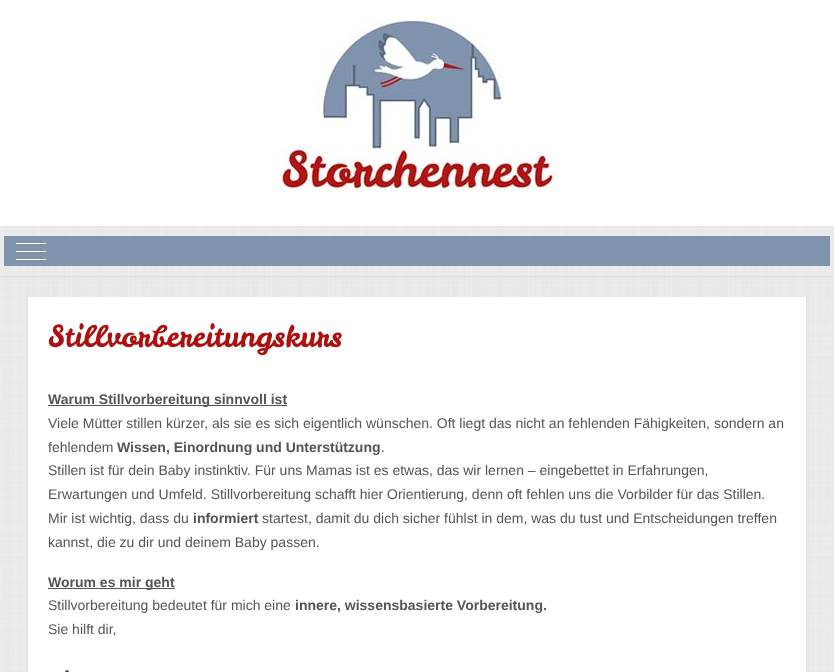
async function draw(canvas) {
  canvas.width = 834
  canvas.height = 672
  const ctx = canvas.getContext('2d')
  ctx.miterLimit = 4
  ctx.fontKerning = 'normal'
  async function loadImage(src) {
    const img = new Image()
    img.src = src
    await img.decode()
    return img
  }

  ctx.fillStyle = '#fff'
  ctx.fillRect(0, 0, 834, 672)
  ctx.drawImage(await loadImage('image0.png'), 276, 20, 283, 170)
  ctx.drawImage(await loadImage('image1.png'), 0, 226, 834, 50)
  ctx.fillStyle = '#dee2e6'
  ctx.fillRect(0, 276, 834, 1)
  ctx.fillStyle = '#7f93ac'
  ctx.fillRect(4, 236, 826, 30)
  ctx.fillStyle = '#fff'
  ctx.fillRect(16, 251, 30, 1)
  ctx.fillRect(16, 243, 30, 1)
  ctx.fillRect(16, 259, 30, 1)
  ctx.drawImage(await loadImage('image2.png'), 0, 277, 834, 395)
  ctx.fillStyle = '#00000012'
  ctx.filter = 'blur(2px)'
  ctx.beginPath()
  ctx.rect(28, 299, 778, 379)
  ctx.fill()
  ctx.filter = 'none'
  ctx.fillStyle = '#fff'
  ctx.fillRect(28, 297, 778, 375)
  ctx.font = '30px Leckerli One'
  ctx.fillStyle = '#ae100f'
  ctx.fillText('Stillvorbereitungskurs', 48, 347)
  ctx.fillStyle = '#555'
  ctx.fillRect(48, 405, 239, 1)
  ctx.font = 'bold 14px Liberation Sans'
  ctx.fillText('Warum Stillvorbereitung sinnvoll ist', 48, 404)
  ctx.font = '14px Liberation Sans'
  ctx.fillText('Viele Mütter stillen kürzer, als sie es sich eigentlich wünschen. Oft liegt das nicht an fehlenden Fähigkeiten, sondern an', 48, 428)
  ctx.fillText('fehlendem', 48, 452)
  ctx.font = 'bold 14px Liberation Sans'
  ctx.fillText('Wissen, Einordnung und Unterstützung', 117, 452)
  ctx.font = '14px Liberation Sans'
  ctx.fillText('.', 381, 452)
  ctx.fillText('Stillen ist für dein Baby instinktiv. Für uns Mamas ist es etwas, das wir lernen – eingebettet in Erfahrungen,', 48, 475)
  ctx.fillText('Erwartungen und Umfeld. Stillvorbereitung schafft hier Orientierung, denn oft fehlen uns die Vorbilder für das Stillen.', 48, 499)
  ctx.fillText('Mir ist wichtig, dass du', 48, 523)
  ctx.font = 'bold 14px Liberation Sans'
  ctx.fillText('informiert', 193, 523)
  ctx.font = '14px Liberation Sans'
  ctx.fillText('startest, damit du dich sicher fühlst in dem, was du tust und Entscheidungen treffen', 262, 523)
  ctx.fillText('kannst, die zu dir und deinem Baby passen.', 48, 547)
  ctx.fillRect(48, 588, 127, 1)
  ctx.font = 'bold 14px Liberation Sans'
  ctx.fillText('Worum es mir geht', 48, 587)
  ctx.font = '14px Liberation Sans'
  ctx.fillText('Stillvorbereitung bedeutet für mich eine', 48, 610)
  ctx.font = 'bold 14px Liberation Sans'
  ctx.fillText('innere, wissensbasierte Vorbereitung.', 295, 610)
  ctx.font = '14px Liberation Sans'
  ctx.fillText('Sie hilft dir,', 48, 634)
  ctx.beginPath()
  ctx.arc(67, 672, 2, 0, 2 * Math.PI)
  ctx.fill()
}

draw(document.querySelector('canvas'))
